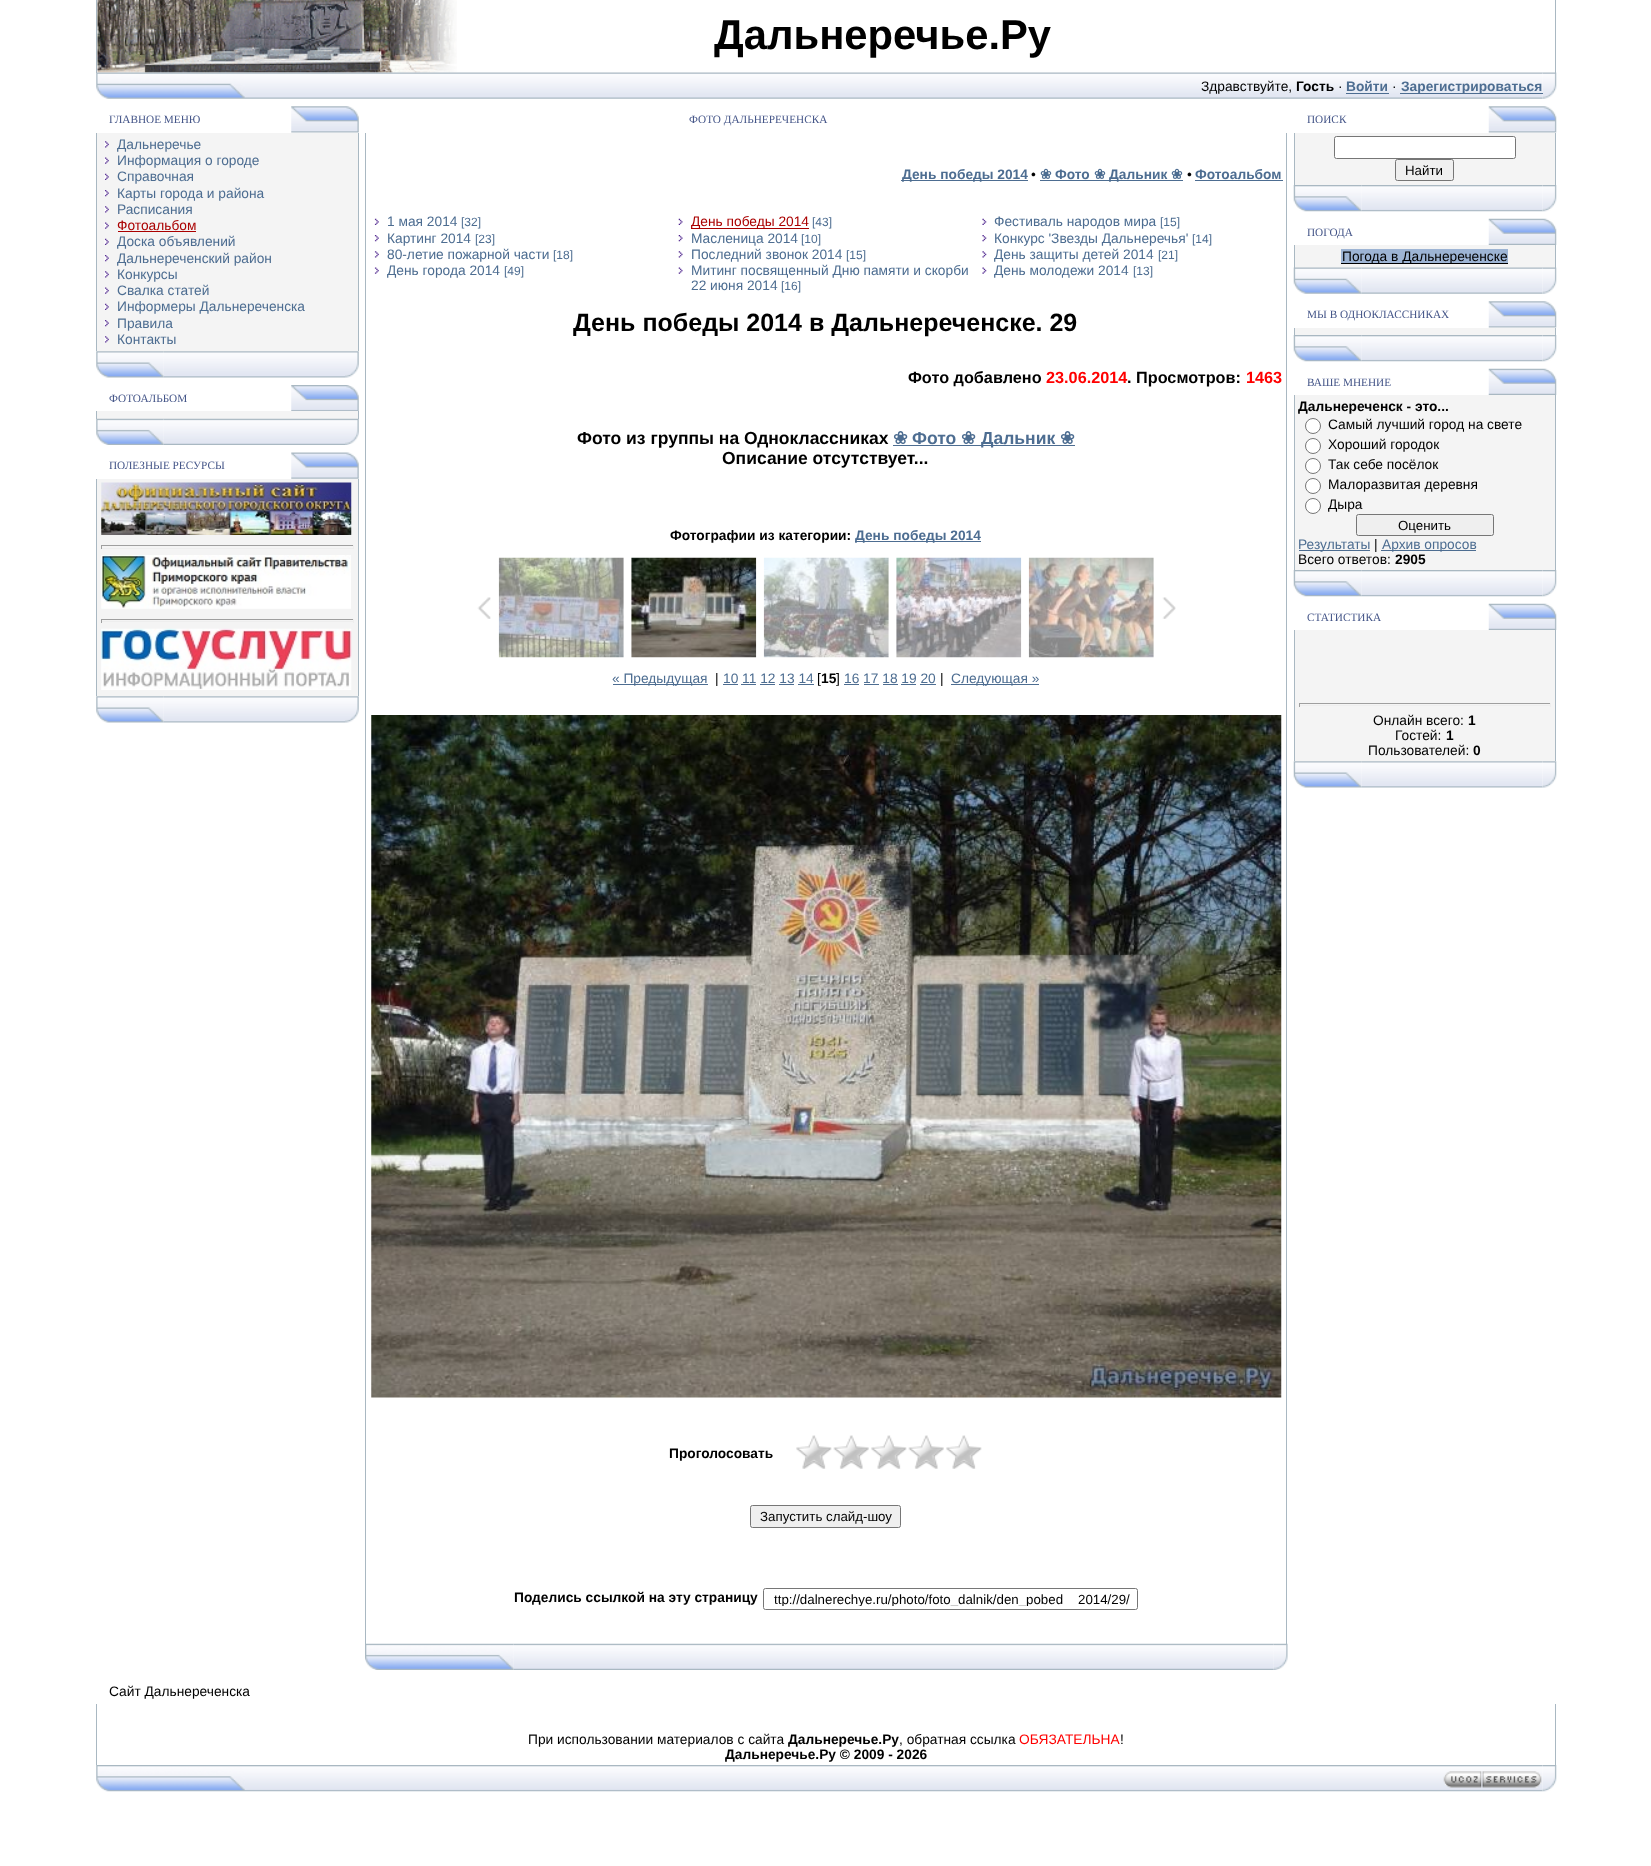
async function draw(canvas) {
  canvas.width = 1651
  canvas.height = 1866
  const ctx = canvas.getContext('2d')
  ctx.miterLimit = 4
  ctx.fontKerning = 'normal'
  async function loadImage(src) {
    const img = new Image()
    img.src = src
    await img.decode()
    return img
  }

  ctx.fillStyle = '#fff'
  ctx.fillRect(0, 0, 1651, 1866)
  ctx.fillStyle = '#a9b8c2'
  ctx.fillRect(1555, 0, 1, 73)
  ctx.fillRect(96, 0, 1, 73)
  ctx.drawImage(await loadImage('image0.png'), 97, 0, 360, 73)
  ctx.font = 'bold 41.75px Liberation Sans'
  ctx.fillStyle = '#000'
  ctx.fillText('Дальнеречье.Ру', 714, 49)
  ctx.drawImage(await loadImage('image1.png'), 96, 72, 149, 27)
  ctx.drawImage(await loadImage('image2.png'), 245, 72, 1298, 27)
  ctx.font = '13.75px Liberation Sans'
  ctx.fillText('Здравствуйте,', 1201, 91)
  ctx.font = 'bold 13.75px Liberation Sans'
  ctx.fillText('Гость', 1296, 91)
  ctx.font = '13.75px Liberation Sans'
  ctx.fillText('·', 1338, 91)
  ctx.font = 'bold 13.75px Liberation Sans'
  ctx.fillStyle = '#4d6d91'
  ctx.fillText('Войти', 1346, 91)
  ctx.fillRect(1346, 93, 43, 1)
  ctx.font = '13.75px Liberation Sans'
  ctx.fillStyle = '#000'
  ctx.fillText('·', 1392, 91)
  ctx.drawImage(await loadImage('image3.png'), 1542, 72, 15, 27)
  ctx.fillStyle = '#4d6d91'
  ctx.fillRect(1400, 93, 143, 1)
  ctx.font = 'bold 13.75px Liberation Sans'
  ctx.fillText('Зарегистрироваться', 1401, 91)
  ctx.font = '11.25px Liberation Serif'
  ctx.fillStyle = '#458'
  ctx.fillText('ГЛАВНОЕ МЕНЮ', 109, 123)
  ctx.drawImage(await loadImage('image4.png'), 291, 106, 68, 27)
  ctx.fillStyle = '#f4f4f4'
  ctx.fillRect(97, 133, 261, 218)
  ctx.fillStyle = '#a9b8c2'
  ctx.fillRect(358, 133, 1, 218)
  ctx.fillRect(96, 133, 1, 218)
  ctx.drawImage(await loadImage('image5.png'), 104, 141, 5, 7)
  ctx.font = '13.75px Liberation Sans'
  ctx.fillStyle = '#4d6d91'
  ctx.fillText('Дальнеречье', 117, 149)
  ctx.drawImage(await loadImage('image6.png'), 104, 157, 5, 7)
  ctx.fillText('Информация о городе', 117, 165)
  ctx.drawImage(await loadImage('image7.png'), 104, 173, 5, 7)
  ctx.fillText('Справочная', 117, 181)
  ctx.drawImage(await loadImage('image8.png'), 104, 190, 5, 7)
  ctx.fillText('Карты города и района', 117, 198)
  ctx.drawImage(await loadImage('image5.png'), 104, 206, 5, 7)
  ctx.fillText('Расписания', 117, 214)
  ctx.drawImage(await loadImage('image6.png'), 104, 222, 5, 7)
  ctx.fillStyle = '#a00'
  ctx.fillText('Фотоальбом', 117, 230)
  ctx.fillRect(118, 231, 78, 1)
  ctx.drawImage(await loadImage('image7.png'), 104, 238, 5, 7)
  ctx.fillStyle = '#4d6d91'
  ctx.fillText('Доска объявлений', 117, 246)
  ctx.drawImage(await loadImage('image8.png'), 104, 255, 5, 7)
  ctx.fillText('Дальнереченский район', 117, 263)
  ctx.drawImage(await loadImage('image5.png'), 104, 271, 5, 7)
  ctx.fillText('Конкурсы', 117, 279)
  ctx.drawImage(await loadImage('image6.png'), 104, 287, 5, 7)
  ctx.fillText('Свалка статей', 117, 295)
  ctx.drawImage(await loadImage('image7.png'), 104, 303, 5, 7)
  ctx.fillText('Информеры Дальнереченска', 117, 311)
  ctx.drawImage(await loadImage('image8.png'), 104, 320, 5, 7)
  ctx.fillText('Правила', 117, 328)
  ctx.drawImage(await loadImage('image5.png'), 104, 336, 5, 7)
  ctx.fillText('Контакты', 117, 344)
  ctx.drawImage(await loadImage('image9.png'), 96, 351, 68, 27)
  ctx.drawImage(await loadImage('image10.png'), 163, 351, 182, 27)
  ctx.drawImage(await loadImage('image11.png'), 345, 351, 14, 27)
  ctx.font = '11.25px Liberation Serif'
  ctx.fillStyle = '#458'
  ctx.fillText('ФОТОАЛЬБОМ', 109, 402)
  ctx.drawImage(await loadImage('image12.png'), 291, 385, 68, 26)
  ctx.fillStyle = '#f4f4f4'
  ctx.fillRect(96, 411, 263, 8)
  ctx.fillStyle = '#a9b8c2'
  ctx.fillRect(358, 411, 1, 8)
  ctx.fillRect(96, 411, 1, 8)
  ctx.drawImage(await loadImage('image13.png'), 96, 418, 68, 27)
  ctx.drawImage(await loadImage('image14.png'), 163, 418, 182, 27)
  ctx.drawImage(await loadImage('image15.png'), 345, 418, 14, 27)
  ctx.fillStyle = '#458'
  ctx.fillText('ПОЛЕЗНЫЕ РЕСУРСЫ', 109, 469)
  ctx.drawImage(await loadImage('image16.png'), 291, 452, 68, 27)
  ctx.fillStyle = '#f4f4f4'
  ctx.fillRect(97, 479, 261, 217)
  ctx.fillStyle = '#a9b8c2'
  ctx.fillRect(358, 479, 1, 217)
  ctx.fillRect(96, 479, 1, 217)
  ctx.drawImage(await loadImage('image17.png'), 101, 482, 251, 53)
  ctx.fillStyle = '#9f9f9f'
  ctx.fillRect(101, 545, 253, 1)
  ctx.fillStyle = '#eee'
  ctx.fillRect(353, 545, 1, 4)
  ctx.fillRect(101, 548, 253, 1)
  ctx.fillStyle = '#9f9f9f'
  ctx.fillRect(101, 545, 1, 4)
  ctx.drawImage(await loadImage('image18.png'), 101, 555, 250, 54)
  ctx.fillRect(101, 619, 253, 1)
  ctx.fillStyle = '#eee'
  ctx.fillRect(353, 619, 1, 4)
  ctx.fillRect(101, 621, 253, 1)
  ctx.fillStyle = '#9f9f9f'
  ctx.fillRect(101, 619, 1, 4)
  ctx.drawImage(await loadImage('image19.png'), 101, 628, 251, 62)
  ctx.drawImage(await loadImage('image9.png'), 96, 696, 68, 27)
  ctx.drawImage(await loadImage('image10.png'), 163, 696, 182, 27)
  ctx.drawImage(await loadImage('image11.png'), 345, 696, 14, 27)
  ctx.fillStyle = '#458'
  ctx.fillText('ФОТО ДАЛЬНЕРЕЧЕНСКА', 689, 123)
  ctx.fillStyle = '#a9b8c2'
  ctx.fillRect(1286, 133, 1, 1511)
  ctx.fillRect(365, 133, 1, 1511)
  ctx.fillStyle = '#4d6d91'
  ctx.fillRect(901, 180, 127, 1)
  ctx.font = 'bold 13.75px Liberation Sans'
  ctx.fillText('День победы 2014', 902, 179)
  ctx.font = '13.75px Liberation Sans'
  ctx.fillStyle = '#000'
  ctx.fillText('•', 1031, 179)
  ctx.font = 'bold 13.75px DejaVu Sans'
  ctx.fillStyle = '#4d6d91'
  ctx.fillText('❀', 1040, 179)
  ctx.font = 'bold 13.75px Liberation Sans'
  ctx.fillText('Фото', 1055, 179)
  ctx.font = 'bold 13.75px DejaVu Sans'
  ctx.fillText('❀', 1094, 179)
  ctx.fillRect(1040, 180, 143, 1)
  ctx.font = 'bold 13.75px Liberation Sans'
  ctx.fillText('Дальник', 1109, 179)
  ctx.font = 'bold 13.75px DejaVu Sans'
  ctx.fillText('❀', 1171, 179)
  ctx.font = '13.75px Liberation Sans'
  ctx.fillStyle = '#000'
  ctx.fillText('•', 1187, 179)
  ctx.font = 'bold 13.75px Liberation Sans'
  ctx.fillStyle = '#4d6d91'
  ctx.fillText('Фотоальбом', 1195, 179)
  ctx.fillRect(1195, 180, 88, 1)
  ctx.drawImage(await loadImage('image20.png'), 374, 218, 5, 7)
  ctx.font = '13.75px Liberation Sans'
  ctx.fillText('1 мая 2014', 387, 226)
  ctx.font = '12px Liberation Sans'
  ctx.fillText('[32]', 461, 226)
  ctx.drawImage(await loadImage('image21.png'), 678, 218, 5, 7)
  ctx.fillStyle = '#a00'
  ctx.fillRect(691, 228, 118, 1)
  ctx.font = '13.75px Liberation Sans'
  ctx.fillText('День победы 2014', 691, 226)
  ctx.font = '12px Liberation Sans'
  ctx.fillStyle = '#4d6d91'
  ctx.fillText('[43]', 812, 226)
  ctx.drawImage(await loadImage('image22.png'), 982, 218, 5, 7)
  ctx.font = '13.75px Liberation Sans'
  ctx.fillText('Фестиваль народов мира', 994, 226)
  ctx.font = '12px Liberation Sans'
  ctx.fillText('[15]', 1160, 226)
  ctx.drawImage(await loadImage('image23.png'), 374, 235, 5, 7)
  ctx.font = '13.75px Liberation Sans'
  ctx.fillText('Картинг 2014', 387, 243)
  ctx.font = '12px Liberation Sans'
  ctx.fillText('[23]', 475, 243)
  ctx.drawImage(await loadImage('image24.png'), 678, 235, 5, 7)
  ctx.font = '13.75px Liberation Sans'
  ctx.fillText('Масленица 2014', 691, 243)
  ctx.font = '12px Liberation Sans'
  ctx.fillText('[10]', 801, 243)
  ctx.drawImage(await loadImage('image25.png'), 982, 235, 5, 7)
  ctx.font = '13.75px Liberation Sans'
  ctx.fillText('Конкурс \'Звезды Дальнеречья\'', 994, 243)
  ctx.font = '12px Liberation Sans'
  ctx.fillText('[14]', 1192, 243)
  ctx.drawImage(await loadImage('image26.png'), 374, 251, 5, 7)
  ctx.font = '13.75px Liberation Sans'
  ctx.fillText('80-летие пожарной части', 387, 259)
  ctx.font = '12px Liberation Sans'
  ctx.fillText('[18]', 553, 259)
  ctx.drawImage(await loadImage('image27.png'), 678, 251, 5, 7)
  ctx.font = '13.75px Liberation Sans'
  ctx.fillText('Последний звонок 2014', 691, 259)
  ctx.font = '12px Liberation Sans'
  ctx.fillText('[15]', 846, 259)
  ctx.drawImage(await loadImage('image28.png'), 982, 251, 5, 7)
  ctx.font = '13.75px Liberation Sans'
  ctx.fillText('День защиты детей 2014', 994, 259)
  ctx.font = '12px Liberation Sans'
  ctx.fillText('[21]', 1158, 259)
  ctx.drawImage(await loadImage('image29.png'), 374, 267, 5, 7)
  ctx.font = '13.75px Liberation Sans'
  ctx.fillText('День города 2014', 387, 275)
  ctx.font = '12px Liberation Sans'
  ctx.fillText('[49]', 504, 275)
  ctx.drawImage(await loadImage('image30.png'), 678, 267, 5, 7)
  ctx.font = '13.75px Liberation Sans'
  ctx.fillText('Митинг посвященный Дню памяти и скорби', 691, 275)
  ctx.fillText('22 июня 2014', 691, 290)
  ctx.font = '12px Liberation Sans'
  ctx.fillText('[16]', 781, 290)
  ctx.drawImage(await loadImage('image31.png'), 982, 267, 5, 7)
  ctx.font = '13.75px Liberation Sans'
  ctx.fillText('День молодежи 2014', 994, 275)
  ctx.font = '12px Liberation Sans'
  ctx.fillText('[13]', 1133, 275)
  ctx.font = 'bold 25px Liberation Sans'
  ctx.fillStyle = '#000'
  ctx.fillText('День победы 2014 в Дальнереченске. 29', 573, 331)
  ctx.font = 'bold 16.25px Liberation Sans'
  ctx.fillText('Фото добавлено', 908, 383)
  ctx.fillStyle = '#f00'
  ctx.fillText('23.06.2014', 1046, 383)
  ctx.fillStyle = '#000'
  ctx.fillText('. Просмотров:', 1127, 383)
  ctx.fillStyle = '#f00'
  ctx.fillText('1463', 1246, 383)
  ctx.font = 'bold 17.5px Liberation Sans'
  ctx.fillStyle = '#000'
  ctx.fillText('Фото из группы на Одноклассниках', 577, 444)
  ctx.font = 'bold 17.5px DejaVu Sans'
  ctx.fillStyle = '#4d6d91'
  ctx.fillText('❀', 893, 444)
  ctx.font = 'bold 17.5px Liberation Sans'
  ctx.fillText('Фото', 912, 444)
  ctx.font = 'bold 17.5px DejaVu Sans'
  ctx.fillText('❀', 961, 444)
  ctx.fillRect(893, 445, 182, 1)
  ctx.font = 'bold 17.5px Liberation Sans'
  ctx.fillText('Дальник', 981, 444)
  ctx.font = 'bold 17.5px DejaVu Sans'
  ctx.fillText('❀', 1060, 444)
  ctx.font = 'bold 17.5px Liberation Sans'
  ctx.fillStyle = '#000'
  ctx.fillText('Описание отсутствует...', 722, 464)
  ctx.font = 'bold 13.75px Liberation Sans'
  ctx.fillText('Фотографии из категории:', 670, 540)
  ctx.fillStyle = '#4d6d91'
  ctx.fillRect(855, 541, 126, 1)
  ctx.fillText('День победы 2014', 855, 540)
  ctx.drawImage(await loadImage('image32.png'), 477, 597, 14, 22)
  ctx.drawImage(await loadImage('image33.png'), 498, 557, 126, 101)
  ctx.drawImage(await loadImage('image34.png'), 631, 557, 126, 101)
  ctx.drawImage(await loadImage('image35.png'), 763, 557, 126, 101)
  ctx.drawImage(await loadImage('image36.png'), 896, 557, 126, 101)
  ctx.drawImage(await loadImage('image37.png'), 1028, 557, 126, 101)
  ctx.drawImage(await loadImage('image38.png'), 1162, 597, 14, 22)
  ctx.fillRect(613, 684, 95, 1)
  ctx.font = '13.75px Liberation Sans'
  ctx.fillText('« Предыдущая', 612, 683)
  ctx.fillStyle = '#000'
  ctx.fillText('|', 715, 683)
  ctx.fillStyle = '#4d6d91'
  ctx.fillText('10 11 12 13 14', 723, 683)
  ctx.fillRect(723, 684, 15, 1)
  ctx.fillStyle = '#000'
  ctx.fillText('[', 817, 683)
  ctx.font = 'bold 13.75px Liberation Sans'
  ctx.fillText('15', 821, 683)
  ctx.font = '13.75px Liberation Sans'
  ctx.fillText(']', 836, 683)
  ctx.fillStyle = '#4d6d91'
  ctx.fillText('16 17 18 19 20', 844, 683)
  ctx.fillRect(844, 684, 15, 1)
  ctx.fillStyle = '#000'
  ctx.fillText('|', 940, 683)
  ctx.fillStyle = '#4d6d91'
  ctx.fillRect(951, 684, 88, 1)
  ctx.fillText('Следующая »', 951, 683)
  ctx.fillRect(741, 684, 15, 1)
  ctx.fillRect(760, 684, 15, 1)
  ctx.fillRect(779, 684, 15, 1)
  ctx.fillRect(798, 684, 16, 1)
  ctx.fillRect(864, 684, 15, 1)
  ctx.fillRect(883, 684, 15, 1)
  ctx.fillRect(901, 684, 15, 1)
  ctx.fillRect(920, 684, 16, 1)
  ctx.drawImage(await loadImage('image39.png'), 371, 715, 911, 683)
  ctx.font = 'bold 13.75px Liberation Sans'
  ctx.fillStyle = '#000'
  ctx.fillText('Проголосовать', 669, 1458)
  ctx.drawImage(await loadImage('image40.png'), 796, 1435, 186, 34)
  ctx.fillStyle = '#efefef'
  ctx.beginPath()
  ctx.roundRect(750.5, 1505.5, 150, 22, 2)
  ctx.fill()
  ctx.strokeStyle = '#767676'
  ctx.stroke()
  ctx.font = '13.3px Liberation Sans'
  ctx.fillStyle = '#000'
  ctx.fillText('Запустить слайд-шоу', 760, 1521)
  ctx.font = 'bold 13.75px Liberation Sans'
  ctx.fillText('Поделись ссылкой на эту страницу', 514, 1602)
  ctx.beginPath()
  ctx.roundRect(763.5, 1588.5, 374, 21, 2)
  ctx.stroke()
  ctx.save()
  ctx.beginPath()
  ctx.rect(768, 1591, 365, 15)
  ctx.clip()
  ctx.font = '13.3px Liberation Sans'
  ctx.fillText('ttp://dalnerechye.ru/photo/foto_dalnik/den_pobed', 774, 1604)
  ctx.restore()
  ctx.font = '13.3px Liberation Sans'
  ctx.fillText('2014/29/', 1078, 1604)
  ctx.drawImage(await loadImage('image41.png'), 365, 1643, 149, 27)
  ctx.drawImage(await loadImage('image42.png'), 513, 1643, 761, 27)
  ctx.drawImage(await loadImage('image43.png'), 1273, 1643, 15, 27)
  ctx.font = '11.25px Liberation Serif'
  ctx.fillStyle = '#458'
  ctx.fillText('ПОИСК', 1307, 123)
  ctx.drawImage(await loadImage('image44.png'), 1488, 106, 69, 27)
  ctx.fillStyle = '#f4f4f4'
  ctx.fillRect(1295, 133, 260, 52)
  ctx.fillStyle = '#a9b8c2'
  ctx.fillRect(1555, 133, 1, 52)
  ctx.fillRect(1294, 133, 1, 52)
  ctx.fillStyle = '#fff'
  ctx.beginPath()
  ctx.roundRect(1334.5, 136.5, 181, 22, 2)
  ctx.fill()
  ctx.stroke()
  ctx.fillStyle = '#efefef'
  ctx.beginPath()
  ctx.roundRect(1395.5, 159.5, 58, 21, 2)
  ctx.fill()
  ctx.stroke()
  ctx.font = '13.3px Liberation Sans'
  ctx.fillStyle = '#000'
  ctx.fillText('Найти', 1405, 175)
  ctx.drawImage(await loadImage('image45.png'), 1293, 185, 69, 27)
  ctx.drawImage(await loadImage('image46.png'), 1361, 185, 182, 27)
  ctx.drawImage(await loadImage('image47.png'), 1542, 185, 15, 27)
  ctx.font = '11.25px Liberation Serif'
  ctx.fillStyle = '#458'
  ctx.fillText('ПОГОДА', 1307, 236)
  ctx.drawImage(await loadImage('image48.png'), 1488, 218, 69, 27)
  ctx.fillStyle = '#f4f4f4'
  ctx.fillRect(1295, 245, 260, 23)
  ctx.fillStyle = '#a9b8c2'
  ctx.fillRect(1555, 245, 1, 23)
  ctx.fillRect(1294, 245, 1, 23)
  ctx.fillStyle = '#9db4d4'
  ctx.fillRect(1341, 249, 167, 14)
  ctx.fillStyle = '#000'
  ctx.fillRect(1341, 263, 167, 1)
  ctx.font = '13.75px Liberation Sans'
  ctx.fillText('Погода в Дальнереченске', 1342, 261)
  ctx.drawImage(await loadImage('image49.png'), 1293, 267, 69, 27)
  ctx.drawImage(await loadImage('image50.png'), 1361, 267, 182, 27)
  ctx.drawImage(await loadImage('image51.png'), 1542, 267, 15, 27)
  ctx.font = '11.25px Liberation Serif'
  ctx.fillStyle = '#458'
  ctx.fillText('МЫ В ОДНОКЛАССНИКАХ', 1307, 318)
  ctx.drawImage(await loadImage('image44.png'), 1488, 301, 69, 27)
  ctx.fillStyle = '#f4f4f4'
  ctx.fillRect(1294, 328, 262, 7)
  ctx.fillStyle = '#a9b8c2'
  ctx.fillRect(1555, 328, 1, 7)
  ctx.fillRect(1294, 328, 1, 7)
  ctx.drawImage(await loadImage('image45.png'), 1293, 335, 69, 27)
  ctx.drawImage(await loadImage('image46.png'), 1361, 335, 182, 27)
  ctx.drawImage(await loadImage('image47.png'), 1542, 335, 15, 27)
  ctx.fillStyle = '#458'
  ctx.fillText('ВАШЕ МНЕНИЕ', 1307, 386)
  ctx.drawImage(await loadImage('image48.png'), 1488, 368, 69, 27)
  ctx.fillStyle = '#f4f4f4'
  ctx.fillRect(1295, 395, 260, 175)
  ctx.fillStyle = '#a9b8c2'
  ctx.fillRect(1555, 395, 1, 175)
  ctx.fillRect(1294, 395, 1, 175)
  ctx.font = 'bold 13.75px Liberation Sans'
  ctx.fillStyle = '#000'
  ctx.fillText('Дальнереченск - это...', 1298, 411)
  ctx.fillStyle = '#fff'
  ctx.beginPath()
  ctx.arc(1313, 426, 7.5, 0, 2 * Math.PI)
  ctx.fill()
  ctx.stroke()
  ctx.font = '13.75px Liberation Sans'
  ctx.fillStyle = '#000'
  ctx.fillText('Самый лучший город на свете', 1328, 429)
  ctx.fillStyle = '#fff'
  ctx.beginPath()
  ctx.arc(1313, 446, 7.5, 0, 2 * Math.PI)
  ctx.fill()
  ctx.stroke()
  ctx.fillStyle = '#000'
  ctx.fillText('Хороший городок', 1328, 449)
  ctx.fillStyle = '#fff'
  ctx.beginPath()
  ctx.arc(1313, 466, 7.5, 0, 2 * Math.PI)
  ctx.fill()
  ctx.stroke()
  ctx.fillStyle = '#000'
  ctx.fillText('Так себе посёлок', 1328, 469)
  ctx.fillStyle = '#fff'
  ctx.beginPath()
  ctx.arc(1313, 486, 7.5, 0, 2 * Math.PI)
  ctx.fill()
  ctx.stroke()
  ctx.fillStyle = '#000'
  ctx.fillText('Малоразвитая деревня', 1328, 489)
  ctx.fillStyle = '#fff'
  ctx.beginPath()
  ctx.arc(1313, 506, 7.5, 0, 2 * Math.PI)
  ctx.fill()
  ctx.stroke()
  ctx.fillStyle = '#000'
  ctx.fillText('Дыра', 1328, 509)
  ctx.fillStyle = '#efefef'
  ctx.beginPath()
  ctx.roundRect(1356.5, 514.5, 137, 21, 2)
  ctx.fill()
  ctx.stroke()
  ctx.font = '13.3px Liberation Sans'
  ctx.fillStyle = '#000'
  ctx.fillText('Оценить', 1398, 530)
  ctx.fillStyle = '#4d6d91'
  ctx.fillRect(1299, 550, 71, 1)
  ctx.font = '13.75px Liberation Sans'
  ctx.fillText('Результаты', 1298, 549)
  ctx.fillStyle = '#000'
  ctx.fillText('|', 1374, 549)
  ctx.fillStyle = '#4d6d91'
  ctx.fillRect(1381, 550, 95, 1)
  ctx.fillText('Архив опросов', 1382, 549)
  ctx.fillStyle = '#000'
  ctx.fillText('Всего ответов:', 1298, 564)
  ctx.font = 'bold 13.75px Liberation Sans'
  ctx.fillText('2905', 1395, 564)
  ctx.drawImage(await loadImage('image45.png'), 1293, 570, 69, 27)
  ctx.drawImage(await loadImage('image46.png'), 1361, 570, 182, 27)
  ctx.drawImage(await loadImage('image47.png'), 1542, 570, 15, 27)
  ctx.font = '11.25px Liberation Serif'
  ctx.fillStyle = '#458'
  ctx.fillText('СТАТИСТИКА', 1307, 621)
  ctx.drawImage(await loadImage('image48.png'), 1488, 603, 69, 27)
  ctx.fillStyle = '#f4f4f4'
  ctx.fillRect(1295, 630, 260, 131)
  ctx.fillStyle = '#a9b8c2'
  ctx.fillRect(1555, 630, 1, 131)
  ctx.fillRect(1294, 630, 1, 131)
  ctx.fillStyle = '#9f9f9f'
  ctx.fillRect(1299, 703, 252, 1)
  ctx.fillStyle = '#eee'
  ctx.fillRect(1550, 703, 1, 4)
  ctx.fillRect(1299, 705, 252, 1)
  ctx.fillStyle = '#9f9f9f'
  ctx.fillRect(1299, 703, 1, 4)
  ctx.font = '13.75px Liberation Sans'
  ctx.fillStyle = '#000'
  ctx.fillText('Онлайн всего:', 1373, 725)
  ctx.font = 'bold 13.75px Liberation Sans'
  ctx.fillText('1', 1468, 725)
  ctx.font = '13.75px Liberation Sans'
  ctx.fillText('Гостей:', 1395, 740)
  ctx.font = 'bold 13.75px Liberation Sans'
  ctx.fillText('1', 1446, 740)
  ctx.font = '13.75px Liberation Sans'
  ctx.fillText('Пользователей:', 1368, 755)
  ctx.font = 'bold 13.75px Liberation Sans'
  ctx.fillText('0', 1473, 755)
  ctx.drawImage(await loadImage('image52.png'), 1293, 761, 69, 27)
  ctx.drawImage(await loadImage('image53.png'), 1361, 761, 182, 27)
  ctx.drawImage(await loadImage('image54.png'), 1542, 761, 15, 27)
  ctx.font = '13.75px Liberation Sans'
  ctx.fillText('Сайт Дальнереченска', 109, 1696)
  ctx.fillStyle = '#a9b8c2'
  ctx.fillRect(1555, 1704, 1, 61)
  ctx.fillRect(96, 1704, 1, 61)
  ctx.fillStyle = '#000'
  ctx.fillText('При использовании материалов с сайта', 528, 1744)
  ctx.font = 'bold 13.75px Liberation Sans'
  ctx.fillText('Дальнеречье.Ру', 788, 1744)
  ctx.font = '13.75px Liberation Sans'
  ctx.fillText(', обратная ссылка', 899, 1744)
  ctx.fillStyle = '#f00'
  ctx.fillText('ОБЯЗАТЕЛЬНА', 1019, 1744)
  ctx.fillStyle = '#000'
  ctx.fillText('!', 1120, 1744)
  ctx.font = 'bold 13.75px Liberation Sans'
  ctx.fillText('Дальнеречье.Ру © 2009 - 2026', 725, 1759)
  ctx.drawImage(await loadImage('image55.png'), 96, 1765, 149, 27)
  ctx.drawImage(await loadImage('image56.png'), 245, 1765, 1298, 27)
  ctx.drawImage(await loadImage('image57.png'), 1443, 1771, 99, 17)
  ctx.drawImage(await loadImage('image47.png'), 1542, 1765, 15, 27)
}

draw(document.querySelector('canvas'))
